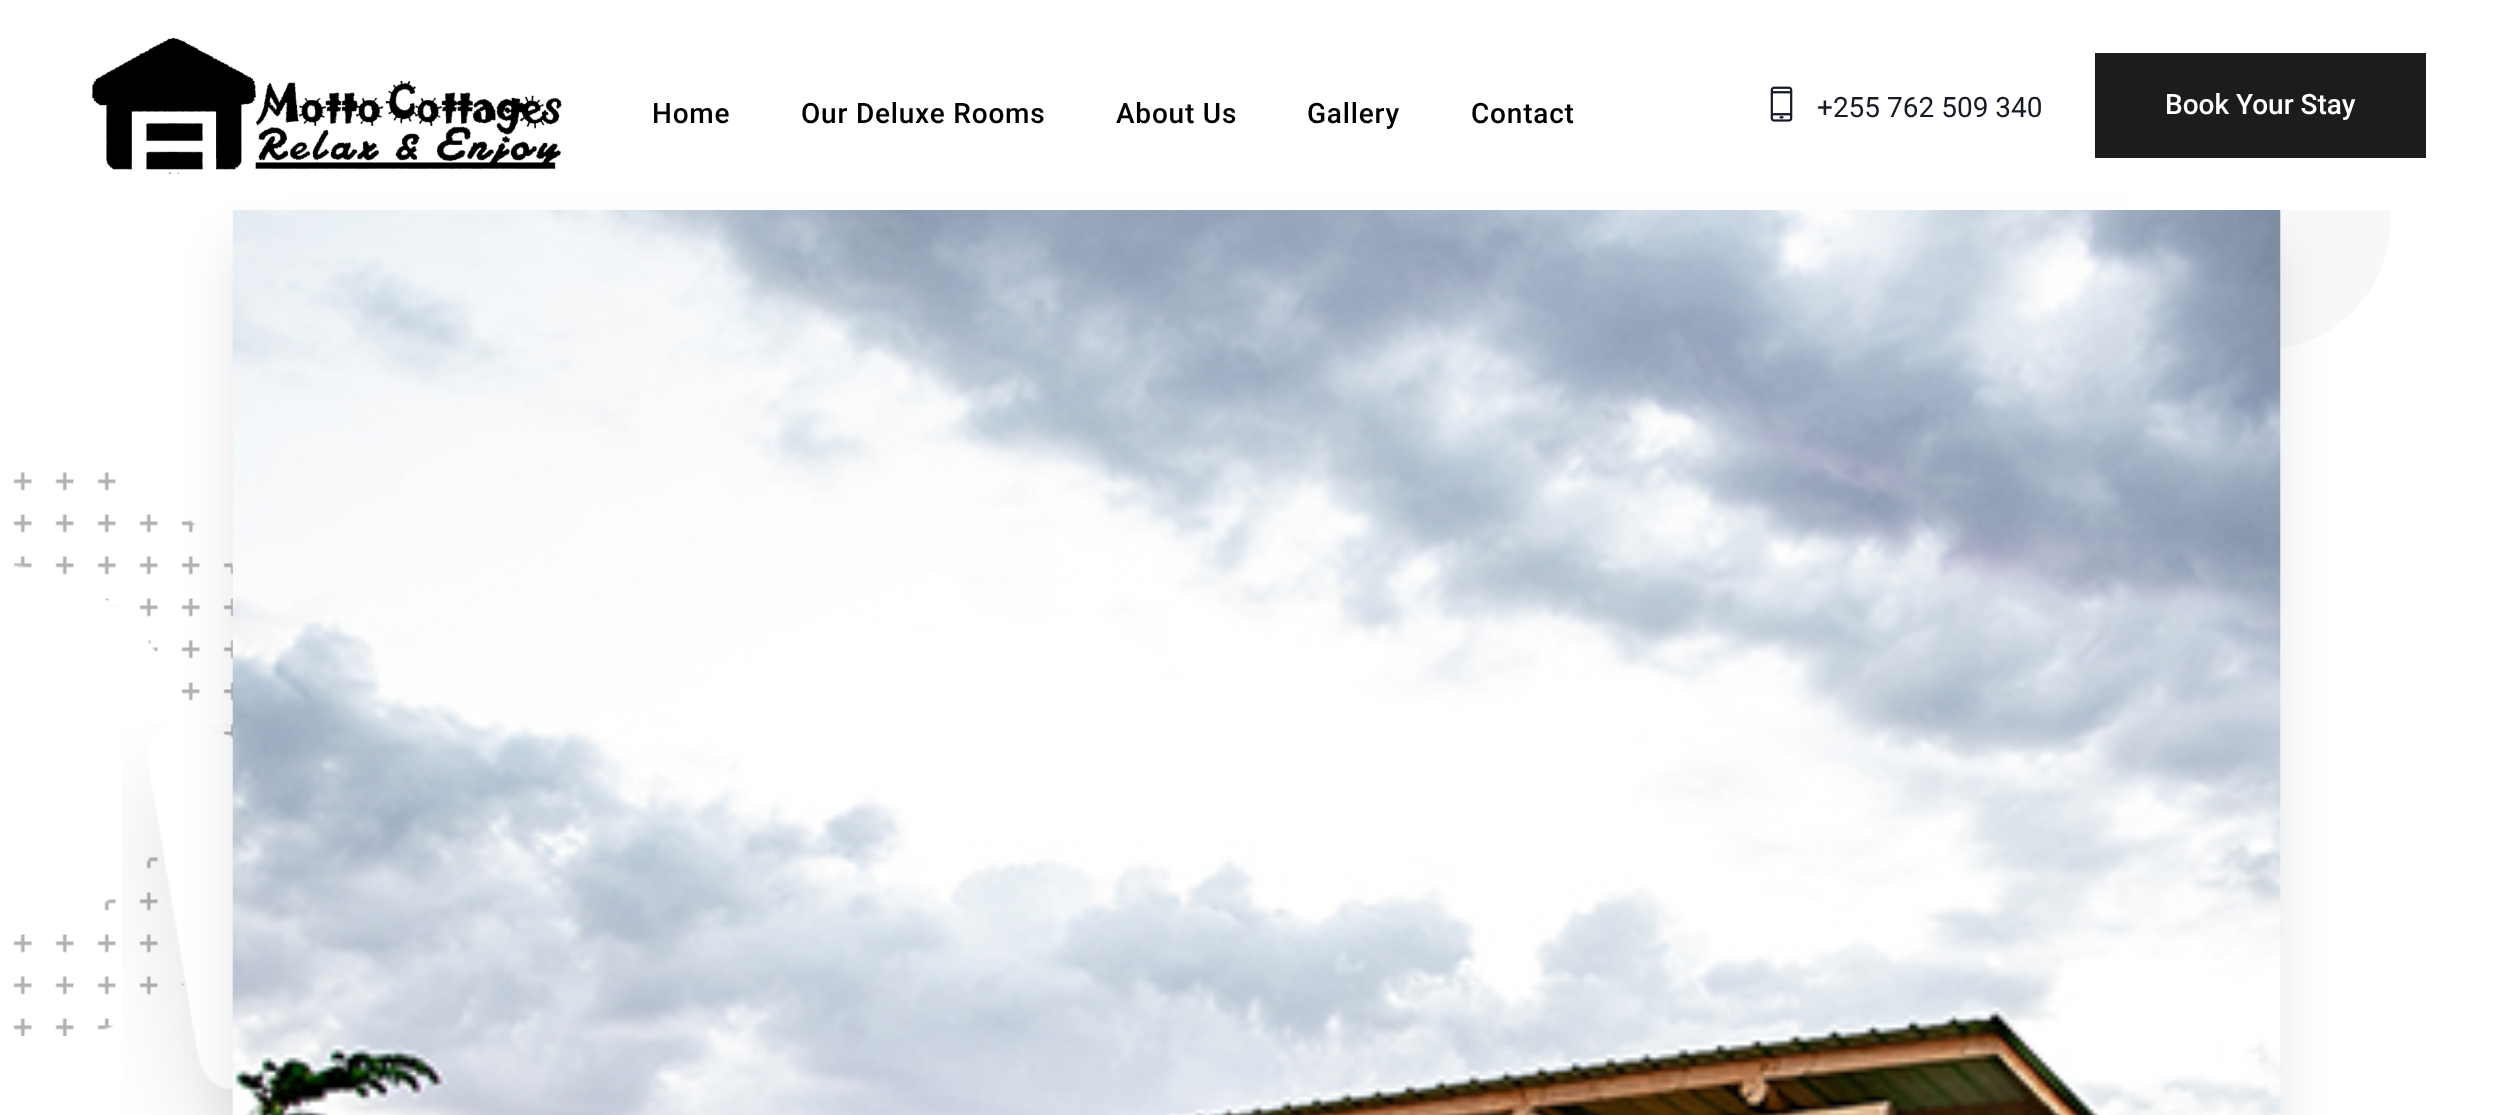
async function draw(canvas) {
  canvas.width = 2512
  canvas.height = 1115
  const ctx = canvas.getContext('2d')
  ctx.miterLimit = 4
  ctx.fontKerning = 'normal'
  async function loadImage(src) {
    const img = new Image()
    img.src = src
    await img.decode()
    return img
  }

  ctx.fillStyle = '#fff'
  ctx.fillRect(0, 0, 2512, 1115)
  ctx.fillStyle = '#f6f8fa'
  ctx.beginPath()
  ctx.roundRect(2128, 88, 263, 262, 131)
  ctx.fill()
  ctx.drawImage(await loadImage('image0.png'), 13, 472, 220, 564)
  ctx.drawImage(await loadImage('image2.png'), 122, 724, 111, 391)
  ctx.fillStyle = '#0000001a'
  ctx.filter = 'blur(26px)'
  ctx.beginPath()
  ctx.rect(233, 245, 2047, 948)
  ctx.fill()
  ctx.filter = 'none'
  ctx.drawImage(await loadImage('image1.png'), 232, 210, 2049, 905)
  ctx.fillStyle = '#fff'
  ctx.fillRect(2128, 88, 263, 122)
  ctx.drawImage(await loadImage('image3.png'), 91, 37, 471, 137)
  ctx.letterSpacing = '0.8px'
  ctx.font = '500 28px Roboto'
  ctx.fillStyle = '#000'
  ctx.fillText('Home', 652, 123)
  ctx.fillText('Our Deluxe Rooms', 801, 123)
  ctx.fillText('About Us', 1116, 123)
  ctx.fillText('Gallery', 1307, 123)
  ctx.fillText('Contact', 1471, 123)
  ctx.drawImage(await loadImage('image4.png'), 1770, 86, 23, 36)
  ctx.letterSpacing = '0px'
  ctx.font = '28px Roboto'
  ctx.fillStyle = '#171b27'
  ctx.fillText('+255 762 509 340', 1817, 117)
  ctx.fillStyle = '#1b1c1e'
  ctx.fillRect(2095, 53, 331, 105)
  ctx.font = '500 28px Roboto'
  ctx.fillStyle = '#fff'
  ctx.fillText('Book Your Stay', 2165, 114)
}

draw(document.querySelector('canvas'))
